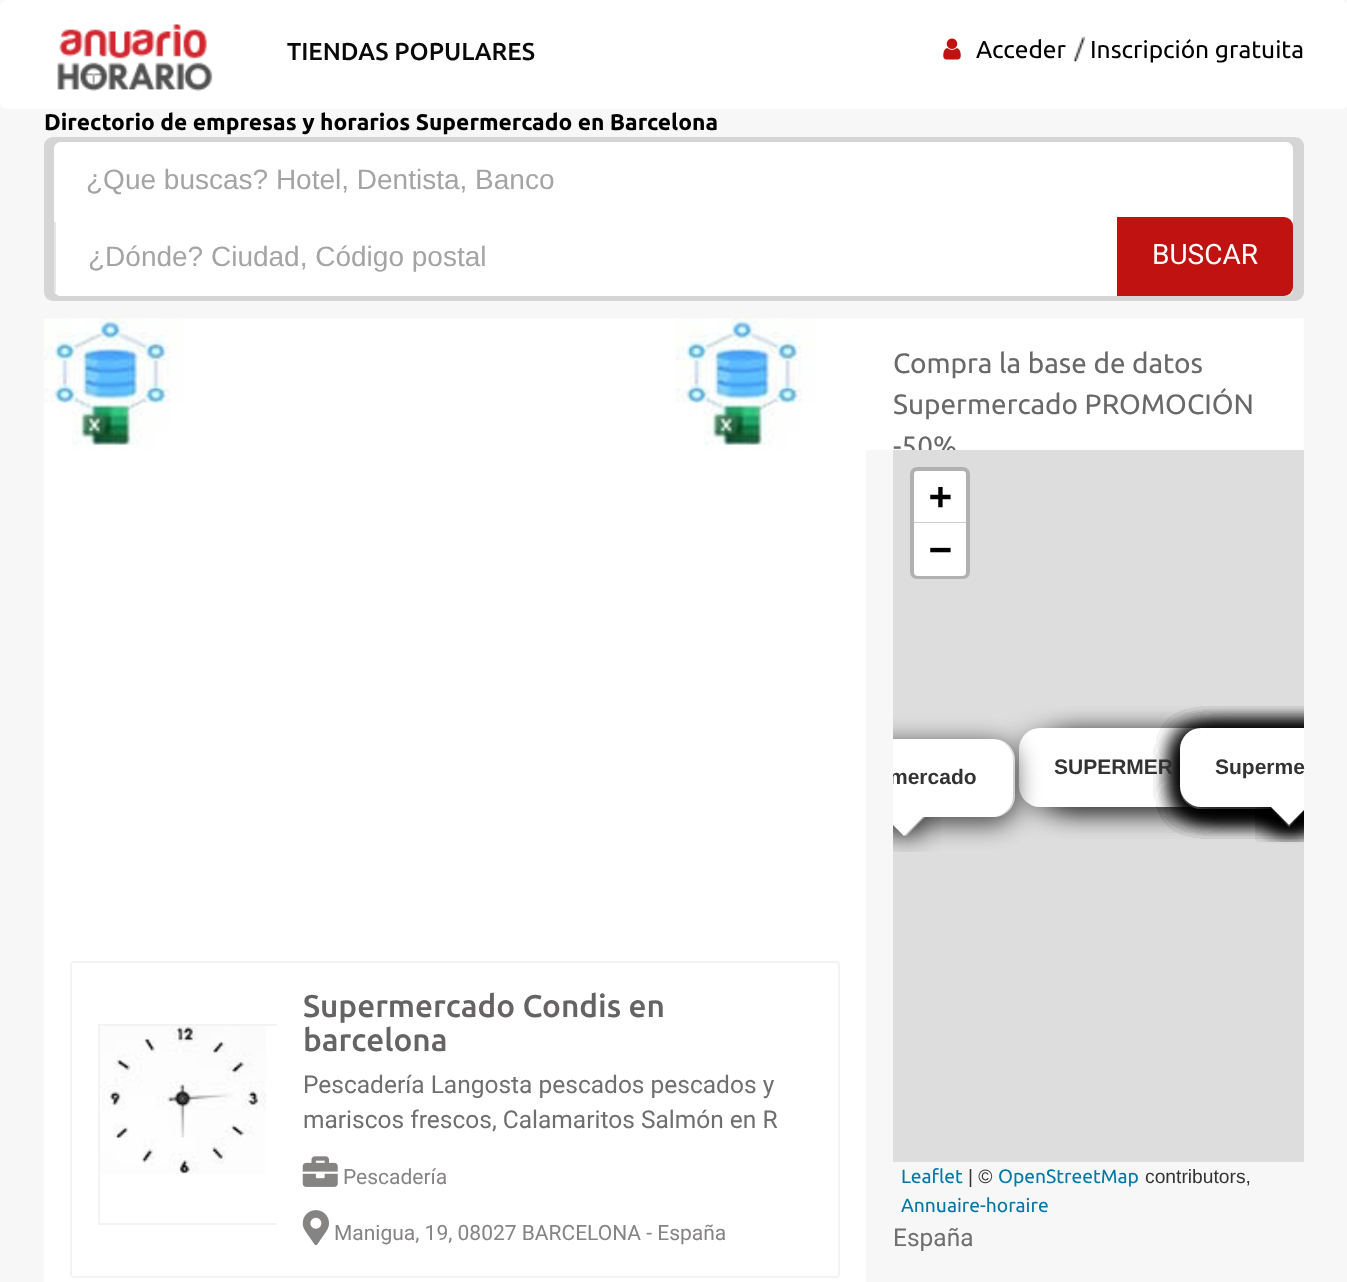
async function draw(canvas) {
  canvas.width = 1347
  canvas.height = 1282
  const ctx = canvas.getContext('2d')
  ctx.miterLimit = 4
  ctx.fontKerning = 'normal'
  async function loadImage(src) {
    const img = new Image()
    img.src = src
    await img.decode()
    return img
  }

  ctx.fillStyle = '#f7f7f7'
  ctx.fillRect(0, 0, 1347, 1282)
  ctx.fillStyle = '#fff'
  ctx.beginPath()
  ctx.roundRect(0, 0, 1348, 109, 7)
  ctx.fill()
  ctx.drawImage(await loadImage('image0.png'), 57, 24, 156, 67)
  ctx.font = '500 24.5px Ubuntu'
  ctx.fillStyle = '#0a0a0a'
  ctx.fillText('TIENDAS POPULARES', 287, 60)
  ctx.drawImage(await loadImage('image1.png'), 943, 38, 18, 22)
  ctx.font = '24.5px Ubuntu'
  ctx.fillStyle = '#000'
  ctx.fillText('Acceder', 976, 58)
  ctx.drawImage(await loadImage('image2.png'), 1073, 36, 12, 26)
  ctx.fillText('Inscripción gratuita', 1090, 58)
  ctx.font = 'bold 22.75px Ubuntu'
  ctx.fillText('Directorio de empresas y horarios Supermercado en Barcelona', 44, 130)
  ctx.fillStyle = '#d5d5d5'
  ctx.beginPath()
  ctx.roundRect(44, 137, 1260, 164, 9)
  ctx.fill()
  ctx.fillStyle = '#fff'
  ctx.beginPath()
  ctx.roundRect(54, 142, 1239, 154, 7)
  ctx.fill()
  ctx.beginPath()
  ctx.roundRect(54, 142, 991, 77, 7)
  ctx.fill()
  ctx.font = '28px Liberation Sans'
  ctx.fillStyle = '#a4a4a4'
  ctx.fillText('¿Que buscas? Hotel, Dentista, Banco', 86, 189)
  ctx.fillStyle = '#fff'
  ctx.beginPath()
  ctx.roundRect(54, 219, 991, 77, 7)
  ctx.fill()
  ctx.fillStyle = '#e6e6e6'
  ctx.fillRect(54, 222, 2, 70)
  ctx.fillStyle = '#a4a4a4'
  ctx.fillText('¿Dónde? Ciudad, Código postal', 88, 266)
  ctx.fillStyle = '#c11212'
  ctx.beginPath()
  ctx.roundRect(1117, 217, 176, 79, [0, 9, 9, 0])
  ctx.fill()
  ctx.font = '28px Roboto'
  ctx.fillStyle = '#fff'
  ctx.fillText('BUSCAR', 1152, 264)
  ctx.fillRect(44, 449, 822, 833)
  ctx.beginPath()
  ctx.roundRect(71, 962, 768, 315, 3)
  ctx.strokeStyle = '#f3f3f3'
  ctx.lineWidth = 2
  ctx.stroke()
  ctx.font = '500 31.5px Ubuntu'
  ctx.fillStyle = '#656363'
  ctx.fillText('barcelona', 303, 1051)
  ctx.font = '24.5px Roboto'
  ctx.fillStyle = '#6f6f6f'
  ctx.fillText('Pescadería Langosta pescados pescados y', 303, 1093)
  ctx.fillText('mariscos frescos, Calamaritos Salmón en R', 303, 1128)
  ctx.drawImage(await loadImage('image4.png'), 302, 1156, 36, 31)
  ctx.drawImage(await loadImage('image5.png'), 302, 1210, 27, 36)
  ctx.save()
  ctx.beginPath()
  ctx.rect(98, 989, 179, 236)
  ctx.clip()
  ctx.strokeRect(99, 1025, 226, 199)
  ctx.restore()
  ctx.drawImage(await loadImage('image3.png'), 100, 1026, 166, 149)
  ctx.font = '500 31.5px Ubuntu'
  ctx.fillStyle = '#656363'
  ctx.fillText('Supermercado Condis en', 303, 1017)
  ctx.font = '21px Roboto'
  ctx.fillStyle = '#868383'
  ctx.fillText('Pescadería', 343, 1184)
  ctx.fillText('Manigua, 19, 08027 BARCELONA - España', 334, 1240)
  ctx.drawImage(await loadImage('image6.png'), 44, 318, 1260, 132)
  ctx.font = '28px Ubuntu'
  ctx.fillStyle = '#696969'
  ctx.fillText('Compra la base de datos', 893, 373)
  ctx.fillText('Supermercado PROMOCIÓN', 893, 414)
  ctx.fillText('-50%', 893, 456)
  ctx.fillStyle = '#ddd'
  ctx.fillRect(893, 450, 411, 712)
  ctx.beginPath()
  ctx.roundRect(912, 469, 56, 108, 5)
  ctx.strokeStyle = '#b1b1b1'
  ctx.lineWidth = 4
  ctx.stroke()
  ctx.fillStyle = '#fff'
  ctx.beginPath()
  ctx.roundRect(914, 471, 52, 52, [4, 4, 0, 0])
  ctx.fill()
  ctx.fillStyle = '#ccc'
  ctx.fillRect(914, 522, 52, 1)
  ctx.font = 'bold 38px DejaVu Sans Mono'
  ctx.fillStyle = '#000'
  ctx.fillText('+', 929, 509)
  ctx.fillStyle = '#fff'
  ctx.beginPath()
  ctx.roundRect(914, 523, 52, 53, [0, 0, 4, 4])
  ctx.fill()
  ctx.fillStyle = '#000'
  ctx.fillText('−', 929, 562)
  ctx.font = '19.25px Ubuntu'
  ctx.fillStyle = '#0078a8'
  ctx.fillText('Leaflet', 901, 1183)
  ctx.font = '19.25px Liberation Sans'
  ctx.fillStyle = '#333'
  ctx.fillText('| ©', 968, 1183)
  ctx.font = '19.25px Ubuntu'
  ctx.fillStyle = '#0078a8'
  ctx.fillText('OpenStreetMap', 998, 1183)
  ctx.font = '19.25px Liberation Sans'
  ctx.fillStyle = '#333'
  ctx.fillText('contributors,', 1145, 1183)
  ctx.font = '19.25px Ubuntu'
  ctx.fillStyle = '#0078a8'
  ctx.fillText('Annuaire-horaire', 901, 1212)
  ctx.save()
  ctx.beginPath()
  ctx.rect(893, 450, 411, 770)
  ctx.clip()
  ctx.fillStyle = '#00000066'
  ctx.filter = 'blur(12px)'
  ctx.beginPath()
  ctx.roundRect(1050, 733, 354, 79, 21)
  ctx.fill()
  ctx.filter = 'none'
  ctx.restore()
  ctx.save()
  ctx.beginPath()
  ctx.rect(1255, 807, 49, 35)
  ctx.clip()
  ctx.fillStyle = '#00000066'
  ctx.filter = 'blur(12.5px)'
  ctx.beginPath()
  ctx.rect(1276, 795, 30, 29)
  ctx.fill()
  ctx.filter = 'none'
  ctx.restore()
  ctx.save()
  ctx.beginPath()
  ctx.rect(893, 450, 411, 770)
  ctx.clip()
  ctx.fillStyle = '#00000066'
  ctx.filter = 'blur(12px)'
  ctx.beginPath()
  ctx.roundRect(1050, 733, 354, 79, 21)
  ctx.fill()
  ctx.filter = 'none'
  ctx.restore()
  ctx.save()
  ctx.beginPath()
  ctx.rect(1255, 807, 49, 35)
  ctx.clip()
  ctx.fillStyle = '#00000066'
  ctx.filter = 'blur(12.5px)'
  ctx.beginPath()
  ctx.rect(1276, 795, 30, 29)
  ctx.fill()
  ctx.filter = 'none'
  ctx.restore()
  ctx.save()
  ctx.beginPath()
  ctx.rect(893, 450, 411, 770)
  ctx.clip()
  ctx.fillStyle = '#00000066'
  ctx.filter = 'blur(12px)'
  ctx.beginPath()
  ctx.roundRect(1180, 733, 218, 79, 21)
  ctx.fill()
  ctx.filter = 'none'
  ctx.restore()
  ctx.save()
  ctx.beginPath()
  ctx.rect(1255, 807, 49, 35)
  ctx.clip()
  ctx.fillStyle = '#00000066'
  ctx.filter = 'blur(12.5px)'
  ctx.beginPath()
  ctx.rect(1274, 795, 30, 29)
  ctx.fill()
  ctx.filter = 'none'
  ctx.restore()
  ctx.save()
  ctx.beginPath()
  ctx.rect(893, 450, 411, 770)
  ctx.clip()
  ctx.fillStyle = '#00000066'
  ctx.filter = 'blur(12px)'
  ctx.beginPath()
  ctx.roundRect(1199, 733, 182, 79, 21)
  ctx.fill()
  ctx.filter = 'none'
  ctx.restore()
  ctx.save()
  ctx.beginPath()
  ctx.rect(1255, 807, 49, 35)
  ctx.clip()
  ctx.fillStyle = '#00000066'
  ctx.filter = 'blur(12.5px)'
  ctx.beginPath()
  ctx.rect(1276, 795, 30, 29)
  ctx.fill()
  ctx.filter = 'none'
  ctx.restore()
  ctx.save()
  ctx.beginPath()
  ctx.rect(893, 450, 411, 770)
  ctx.clip()
  ctx.fillStyle = '#00000066'
  ctx.filter = 'blur(12px)'
  ctx.beginPath()
  ctx.roundRect(1019, 733, 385, 79, 21)
  ctx.fill()
  ctx.filter = 'none'
  ctx.restore()
  ctx.fillStyle = '#fff'
  ctx.beginPath()
  ctx.roundRect(1019, 728, 285, 79, [21, 0, 0, 21])
  ctx.fill()
  ctx.save()
  ctx.beginPath()
  ctx.rect(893, 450, 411, 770)
  ctx.clip()
  ctx.fillStyle = '#00000066'
  ctx.filter = 'blur(12px)'
  ctx.beginPath()
  ctx.roundRect(1180, 733, 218, 79, 21)
  ctx.fill()
  ctx.filter = 'none'
  ctx.restore()
  ctx.save()
  ctx.beginPath()
  ctx.rect(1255, 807, 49, 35)
  ctx.clip()
  ctx.fillStyle = '#00000066'
  ctx.filter = 'blur(12.5px)'
  ctx.beginPath()
  ctx.rect(1274, 795, 30, 29)
  ctx.fill()
  ctx.filter = 'none'
  ctx.restore()
  ctx.save()
  ctx.beginPath()
  ctx.rect(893, 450, 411, 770)
  ctx.clip()
  ctx.fillStyle = '#00000066'
  ctx.filter = 'blur(12px)'
  ctx.beginPath()
  ctx.roundRect(1180, 733, 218, 79, 21)
  ctx.fill()
  ctx.filter = 'none'
  ctx.filter = 'blur(12px)'
  ctx.beginPath()
  ctx.roundRect(1180, 733, 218, 79, 21)
  ctx.fill()
  ctx.filter = 'none'
  ctx.filter = 'blur(12px)'
  ctx.beginPath()
  ctx.roundRect(1180, 733, 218, 79, 21)
  ctx.fill()
  ctx.filter = 'none'
  ctx.filter = 'blur(12px)'
  ctx.beginPath()
  ctx.roundRect(1180, 733, 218, 79, 21)
  ctx.fill()
  ctx.filter = 'none'
  ctx.filter = 'blur(12px)'
  ctx.beginPath()
  ctx.roundRect(1180, 733, 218, 79, 21)
  ctx.fill()
  ctx.filter = 'none'
  ctx.restore()
  ctx.save()
  ctx.beginPath()
  ctx.rect(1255, 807, 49, 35)
  ctx.clip()
  ctx.fillStyle = '#00000066'
  ctx.filter = 'blur(12.5px)'
  ctx.beginPath()
  ctx.rect(1276, 795, 30, 29)
  ctx.fill()
  ctx.filter = 'none'
  ctx.restore()
  ctx.save()
  ctx.beginPath()
  ctx.rect(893, 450, 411, 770)
  ctx.clip()
  ctx.fillStyle = '#00000066'
  ctx.filter = 'blur(12px)'
  ctx.beginPath()
  ctx.roundRect(1180, 735, 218, 79, 21)
  ctx.fill()
  ctx.filter = 'none'
  ctx.restore()
  ctx.beginPath()
  ctx.roundRect(1180, 730, 124, 79, [21, 0, 0, 21])
  ctx.fill()
  ctx.save()
  ctx.beginPath()
  ctx.rect(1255, 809, 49, 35)
  ctx.clip()
  ctx.fillStyle = '#00000066'
  ctx.filter = 'blur(12.5px)'
  ctx.beginPath()
  ctx.rect(1274, 796, 30, 30)
  ctx.fill()
  ctx.filter = 'none'
  ctx.restore()
  ctx.save()
  ctx.beginPath()
  ctx.rect(1255, 809, 49, 35)
  ctx.clip()
  ctx.beginPath()
  ctx.moveTo(1289, 785)
  ctx.lineTo(1310, 806)
  ctx.lineTo(1289, 827)
  ctx.lineTo(1268, 806)
  ctx.closePath()
  ctx.fill()
  ctx.restore()
  ctx.save()
  ctx.beginPath()
  ctx.rect(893, 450, 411, 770)
  ctx.clip()
  ctx.fillStyle = '#00000066'
  ctx.filter = 'blur(12px)'
  ctx.beginPath()
  ctx.roundRect(1180, 733, 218, 79, 21)
  ctx.fill()
  ctx.filter = 'none'
  ctx.restore()
  ctx.save()
  ctx.beginPath()
  ctx.rect(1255, 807, 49, 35)
  ctx.clip()
  ctx.fillStyle = '#00000066'
  ctx.filter = 'blur(12.5px)'
  ctx.beginPath()
  ctx.rect(1274, 795, 30, 29)
  ctx.fill()
  ctx.filter = 'none'
  ctx.restore()
  ctx.save()
  ctx.beginPath()
  ctx.rect(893, 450, 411, 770)
  ctx.clip()
  ctx.fillStyle = '#00000066'
  ctx.filter = 'blur(12px)'
  ctx.beginPath()
  ctx.roundRect(1180, 733, 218, 79, 21)
  ctx.fill()
  ctx.filter = 'none'
  ctx.restore()
  ctx.save()
  ctx.beginPath()
  ctx.rect(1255, 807, 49, 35)
  ctx.clip()
  ctx.fillStyle = '#00000066'
  ctx.filter = 'blur(12.5px)'
  ctx.beginPath()
  ctx.rect(1274, 795, 30, 29)
  ctx.fill()
  ctx.filter = 'none'
  ctx.restore()
  ctx.save()
  ctx.beginPath()
  ctx.rect(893, 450, 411, 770)
  ctx.clip()
  ctx.fillStyle = '#00000066'
  ctx.filter = 'blur(12px)'
  ctx.beginPath()
  ctx.roundRect(1180, 733, 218, 79, 21)
  ctx.fill()
  ctx.filter = 'none'
  ctx.restore()
  ctx.save()
  ctx.beginPath()
  ctx.rect(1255, 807, 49, 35)
  ctx.clip()
  ctx.fillStyle = '#00000066'
  ctx.filter = 'blur(12.5px)'
  ctx.beginPath()
  ctx.rect(1274, 795, 30, 29)
  ctx.fill()
  ctx.filter = 'none'
  ctx.restore()
  ctx.save()
  ctx.beginPath()
  ctx.rect(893, 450, 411, 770)
  ctx.clip()
  ctx.fillStyle = '#00000066'
  ctx.filter = 'blur(12px)'
  ctx.beginPath()
  ctx.roundRect(1180, 733, 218, 79, 21)
  ctx.fill()
  ctx.filter = 'none'
  ctx.restore()
  ctx.save()
  ctx.beginPath()
  ctx.rect(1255, 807, 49, 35)
  ctx.clip()
  ctx.fillStyle = '#00000066'
  ctx.filter = 'blur(12.5px)'
  ctx.beginPath()
  ctx.rect(1274, 795, 30, 29)
  ctx.fill()
  ctx.filter = 'none'
  ctx.restore()
  ctx.save()
  ctx.beginPath()
  ctx.rect(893, 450, 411, 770)
  ctx.clip()
  ctx.fillStyle = '#00000066'
  ctx.filter = 'blur(12px)'
  ctx.beginPath()
  ctx.roundRect(1180, 733, 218, 79, 21)
  ctx.fill()
  ctx.filter = 'none'
  ctx.restore()
  ctx.save()
  ctx.beginPath()
  ctx.rect(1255, 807, 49, 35)
  ctx.clip()
  ctx.fillStyle = '#00000066'
  ctx.filter = 'blur(12.5px)'
  ctx.beginPath()
  ctx.rect(1274, 795, 30, 29)
  ctx.fill()
  ctx.filter = 'none'
  ctx.restore()
  ctx.save()
  ctx.beginPath()
  ctx.rect(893, 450, 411, 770)
  ctx.clip()
  ctx.fillStyle = '#00000066'
  ctx.filter = 'blur(12px)'
  ctx.beginPath()
  ctx.roundRect(796, 744, 219, 79, 21)
  ctx.fill()
  ctx.filter = 'none'
  ctx.restore()
  ctx.beginPath()
  ctx.roundRect(893, 739, 122, 78, [0, 21, 21, 0])
  ctx.fill()
  ctx.save()
  ctx.beginPath()
  ctx.rect(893, 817, 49, 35)
  ctx.clip()
  ctx.fillStyle = '#00000066'
  ctx.filter = 'blur(12.5px)'
  ctx.beginPath()
  ctx.rect(891, 805, 30, 30)
  ctx.fill()
  ctx.filter = 'none'
  ctx.restore()
  ctx.save()
  ctx.beginPath()
  ctx.rect(893, 817, 49, 35)
  ctx.clip()
  ctx.beginPath()
  ctx.moveTo(906, 794)
  ctx.lineTo(927, 815)
  ctx.lineTo(906, 836)
  ctx.lineTo(885, 815)
  ctx.closePath()
  ctx.fill()
  ctx.restore()
  ctx.font = 'bold 21px Liberation Sans'
  ctx.fillStyle = '#333'
  ctx.fillText('SUPERMER', 1054, 774)
  ctx.save()
  ctx.beginPath()
  ctx.rect(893, 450, 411, 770)
  ctx.clip()
  ctx.fillStyle = '#00000066'
  ctx.filter = 'blur(12px)'
  ctx.beginPath()
  ctx.roundRect(795, 744, 218, 79, 21)
  ctx.fill()
  ctx.filter = 'none'
  ctx.restore()
  ctx.fillStyle = '#fff'
  ctx.beginPath()
  ctx.roundRect(893, 739, 120, 78, [0, 21, 21, 0])
  ctx.fill()
  ctx.save()
  ctx.beginPath()
  ctx.rect(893, 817, 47, 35)
  ctx.clip()
  ctx.fillStyle = '#00000066'
  ctx.filter = 'blur(12.5px)'
  ctx.beginPath()
  ctx.rect(889, 805, 30, 30)
  ctx.fill()
  ctx.filter = 'none'
  ctx.restore()
  ctx.save()
  ctx.beginPath()
  ctx.rect(893, 817, 47, 35)
  ctx.clip()
  ctx.beginPath()
  ctx.moveTo(904, 794)
  ctx.lineTo(925, 815)
  ctx.lineTo(904, 836)
  ctx.lineTo(883, 815)
  ctx.closePath()
  ctx.fill()
  ctx.restore()
  ctx.save()
  ctx.beginPath()
  ctx.rect(893, 450, 411, 770)
  ctx.clip()
  ctx.fillStyle = '#333'
  ctx.fillText('mercado', 889, 784)
  ctx.restore()
  ctx.save()
  ctx.beginPath()
  ctx.rect(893, 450, 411, 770)
  ctx.clip()
  ctx.fillStyle = '#00000066'
  ctx.filter = 'blur(12px)'
  ctx.beginPath()
  ctx.roundRect(1180, 733, 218, 79, 21)
  ctx.fill()
  ctx.filter = 'none'
  ctx.restore()
  ctx.beginPath()
  ctx.roundRect(1180, 728, 124, 79, [21, 0, 0, 21])
  ctx.fill()
  ctx.save()
  ctx.beginPath()
  ctx.rect(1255, 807, 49, 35)
  ctx.clip()
  ctx.fillStyle = '#00000066'
  ctx.filter = 'blur(12.5px)'
  ctx.beginPath()
  ctx.rect(1274, 795, 30, 29)
  ctx.fill()
  ctx.filter = 'none'
  ctx.restore()
  ctx.save()
  ctx.beginPath()
  ctx.rect(1255, 807, 49, 35)
  ctx.clip()
  ctx.beginPath()
  ctx.moveTo(1289, 783)
  ctx.lineTo(1310, 804)
  ctx.lineTo(1289, 825)
  ctx.lineTo(1268, 804)
  ctx.closePath()
  ctx.fill()
  ctx.restore()
  ctx.fillStyle = '#333'
  ctx.fillText('Superme', 1215, 774)
  ctx.font = '24.5px Roboto'
  ctx.fillStyle = '#6f6f6f'
  ctx.fillText('España', 893, 1246)
}

draw(document.querySelector('canvas'))
